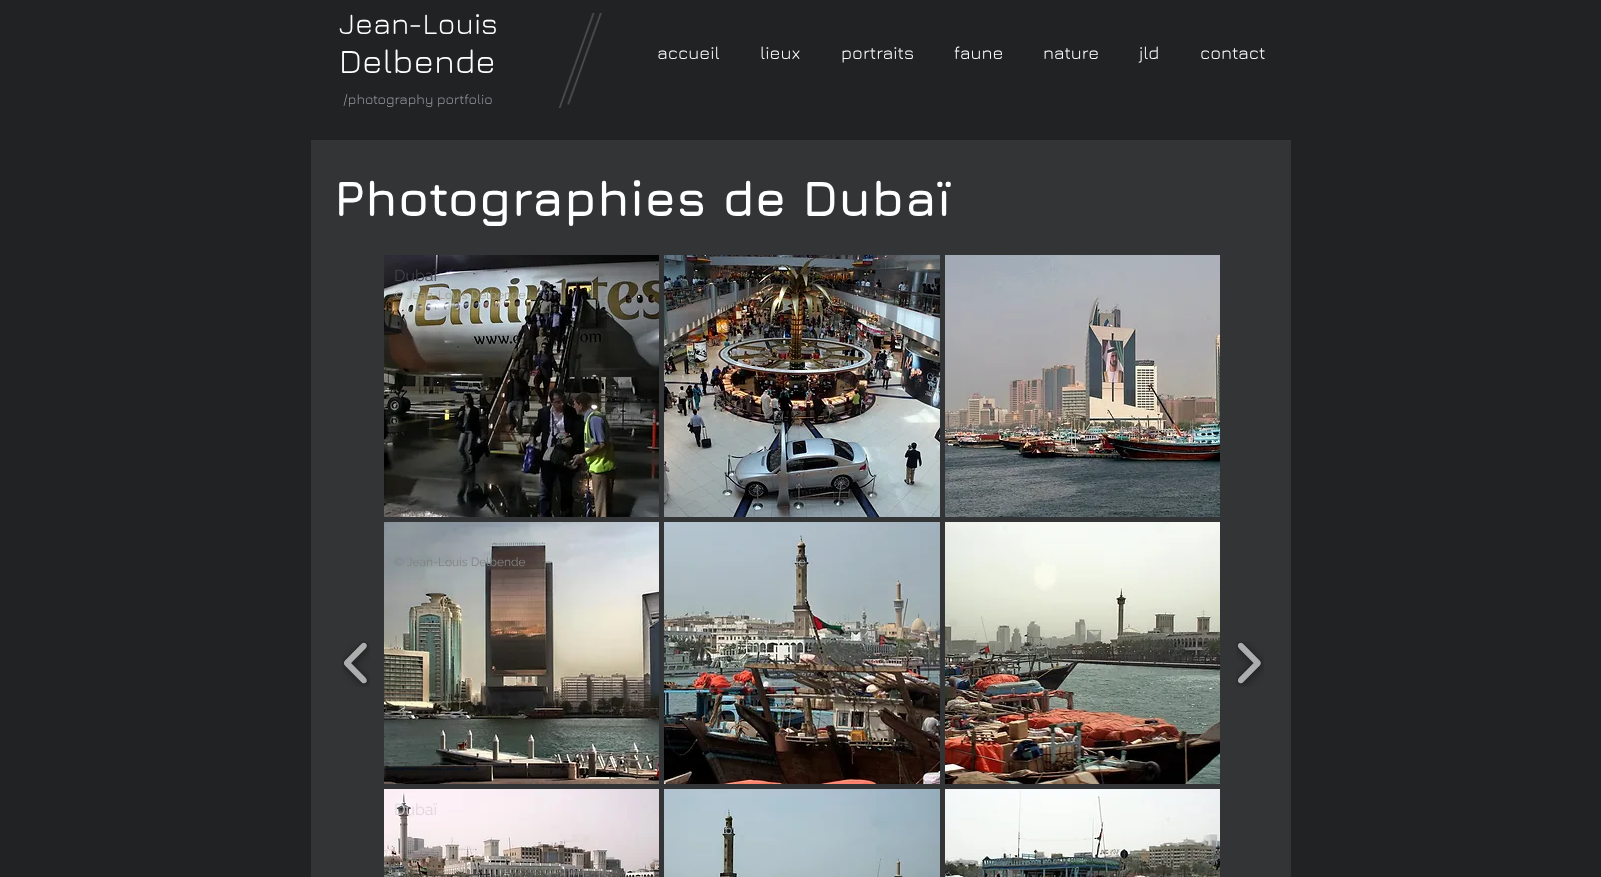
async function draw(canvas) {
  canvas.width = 1601
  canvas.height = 877
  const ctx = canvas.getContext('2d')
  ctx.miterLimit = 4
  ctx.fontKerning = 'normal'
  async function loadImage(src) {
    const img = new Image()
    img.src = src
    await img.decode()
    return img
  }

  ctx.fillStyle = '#202223'
  ctx.fillRect(0, 0, 1601, 877)
  ctx.font = '30px Jura'
  ctx.fillStyle = '#fff'
  ctx.fillText('Jean-Louis', 339, 34)
  ctx.drawImage(await loadImage('image0.png'), 558, 13, 44, 95)
  ctx.font = '34px Jura'
  ctx.fillText('Delbende', 339, 73)
  ctx.font = '18px Jura'
  ctx.fillText('accueil', 657, 59)
  ctx.fillText('lieux', 760, 59)
  ctx.fillText('portraits', 841, 59)
  ctx.fillText('faune', 954, 59)
  ctx.fillText('nature', 1043, 59)
  ctx.fillText('jld', 1139, 59)
  ctx.fillText('contact', 1200, 59)
  ctx.font = '14px Jura'
  ctx.fillStyle = '#969a9c'
  ctx.fillText('/photography portfolio', 343, 104)
  ctx.fillStyle = '#323435'
  ctx.fillRect(311, 140, 980, 737)
  ctx.font = 'bold 50px Jura'
  ctx.fillStyle = '#fff'
  ctx.fillText('Photographies de Dubaï', 334, 216)
  ctx.drawImage(await loadImage('image1.png'), 384, 255, 275, 262)
  ctx.font = '16px Raleway'
  ctx.fillStyle = '#42434b'
  ctx.fillText('Dubaï', 394, 281)
  ctx.font = '12px Raleway'
  ctx.fillStyle = '#a0a08f'
  ctx.fillText('© Jean-Louis Delbende', 394, 299)
  ctx.drawImage(await loadImage('image2.png'), 664, 255, 276, 262)
  ctx.fillStyle = '#504a42'
  ctx.fillText('L', 718, 299)
  ctx.drawImage(await loadImage('image3.png'), 945, 255, 275, 262)
  ctx.drawImage(await loadImage('image4.png'), 384, 522, 275, 262)
  ctx.fillStyle = '#808384'
  ctx.fillText('© Jean-Louis Delbende', 394, 566)
  ctx.drawImage(await loadImage('image5.png'), 664, 522, 276, 262)
  ctx.fillStyle = '#a6b3ba'
  ctx.fillText('de', 791, 566)
  ctx.drawImage(await loadImage('image6.png'), 945, 522, 275, 262)
  ctx.drawImage(await loadImage('image7.png'), 384, 789, 275, 88)
  ctx.font = '16px Raleway'
  ctx.fillStyle = '#e1d6db'
  ctx.fillText('Dubaï', 394, 815)
  ctx.drawImage(await loadImage('image8.png'), 945, 789, 275, 88)
  ctx.drawImage(await loadImage('image9.png'), 664, 789, 276, 88)
  ctx.font = '12px Raleway'
  ctx.fillStyle = '#acbec6'
  ctx.fillText('o', 725, 834)
  ctx.drawImage(await loadImage('image10.png'), 342, 641, 28, 46)
  ctx.drawImage(await loadImage('image11.png'), 1236, 641, 28, 46)
}

draw(document.querySelector('canvas'))
